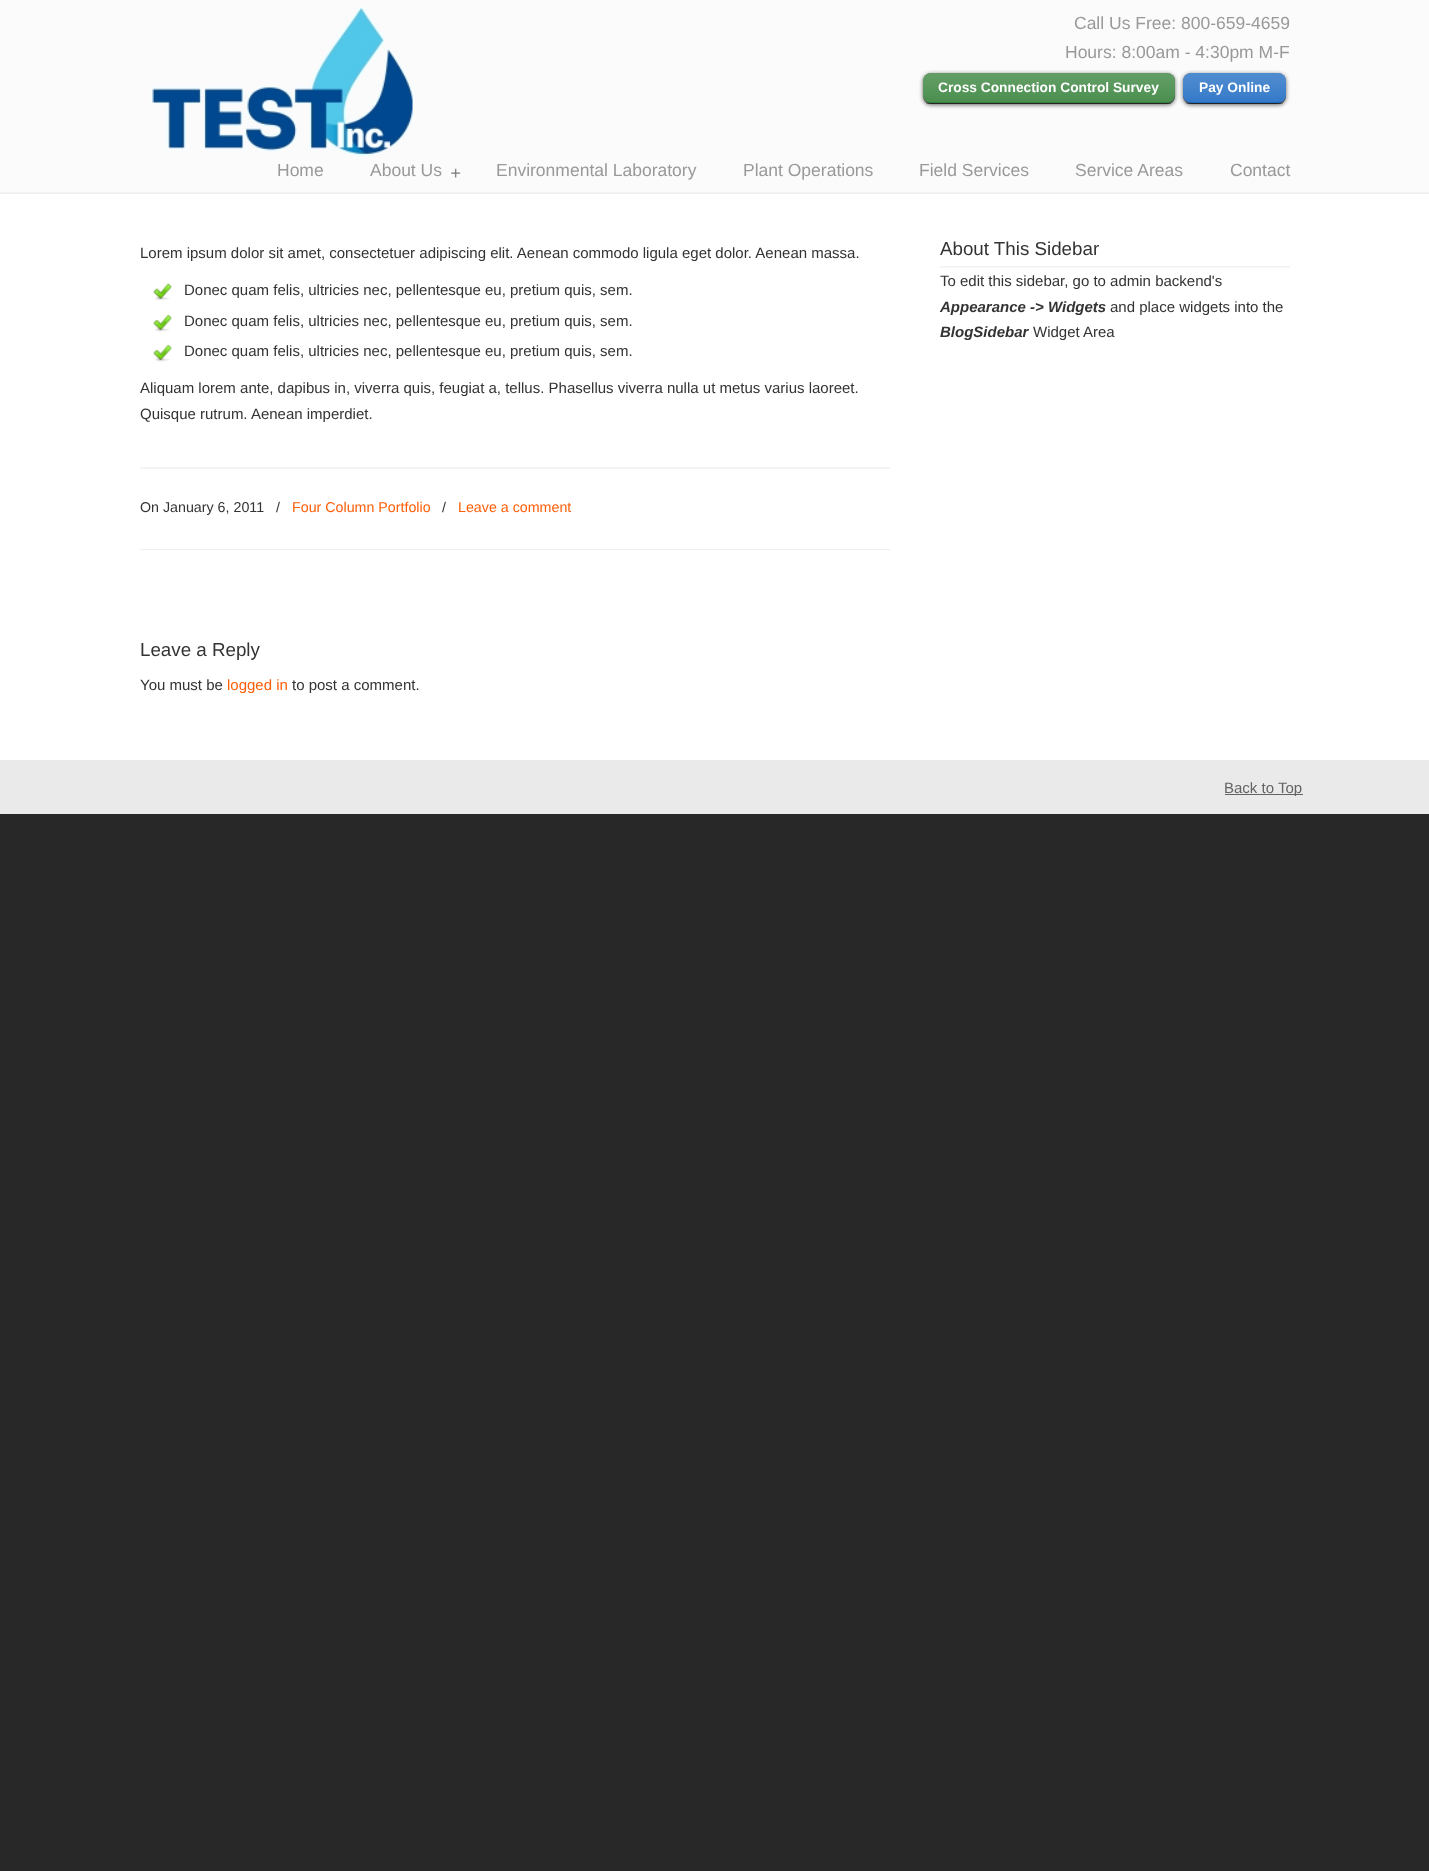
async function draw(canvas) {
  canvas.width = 1429
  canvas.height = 1871
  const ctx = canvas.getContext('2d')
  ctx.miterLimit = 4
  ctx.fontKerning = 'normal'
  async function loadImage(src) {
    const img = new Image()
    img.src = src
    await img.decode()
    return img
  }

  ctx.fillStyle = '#282828'
  ctx.fillRect(0, 0, 1429, 1871)
  ctx.fillStyle = '#fbfbfb'
  ctx.fillRect(0, 0, 1429, 194)
  ctx.drawImage(await loadImage('image0.png'), 151, 7, 262, 149)
  ctx.font = '17.5px Liberation Sans'
  ctx.fillStyle = '#999'
  ctx.fillText('Call Us Free: 800-659-4659', 1074, 29)
  ctx.fillText('Hours: 8:00am - 4:30pm M-F', 1065, 58)
  ctx.fillStyle = '#00000099'
  ctx.filter = 'blur(2px)'
  ctx.beginPath()
  ctx.roundRect(923, 74, 252, 31, 8)
  ctx.fill()
  ctx.filter = 'none'
  ctx.fillStyle = '#222'
  ctx.beginPath()
  ctx.roundRect(923, 73, 252, 31, 8)
  ctx.fill()
  ctx.drawImage(await loadImage('image1.png'), 923, 73, 252, 31)
  ctx.fillStyle = '#00000040'
  ctx.fillRect(926, 103, 245, 1)
  ctx.fillStyle = '#2e7d32'
  ctx.beginPath()
  ctx.roundRect(923, 73, 252, 30, 8)
  ctx.fill()
  ctx.drawImage(await loadImage('image2.png'), 923, 73, 252, 30)
  ctx.font = 'bold 13.75px Liberation Sans'
  ctx.fillStyle = '#fff'
  ctx.fillText('Cross Connection Control Survey', 938, 92)
  ctx.fillStyle = '#00000099'
  ctx.filter = 'blur(2px)'
  ctx.beginPath()
  ctx.roundRect(1183, 74, 103, 31, 8)
  ctx.fill()
  ctx.filter = 'none'
  ctx.fillStyle = '#222'
  ctx.beginPath()
  ctx.roundRect(1183, 73, 103, 31, 8)
  ctx.fill()
  ctx.drawImage(await loadImage('image3.png'), 1183, 73, 103, 31)
  ctx.fillStyle = '#00000040'
  ctx.fillRect(1186, 103, 97, 1)
  ctx.fillStyle = '#1565c0'
  ctx.beginPath()
  ctx.roundRect(1183, 73, 103, 30, 8)
  ctx.fill()
  ctx.drawImage(await loadImage('image4.png'), 1183, 73, 103, 30)
  ctx.fillStyle = '#fff'
  ctx.fillText('Pay Online', 1199, 92)
  ctx.drawImage(await loadImage('image5.png'), 0, 192, 1429, 2)
  ctx.font = '17.5px Liberation Sans'
  ctx.fillStyle = '#999'
  ctx.fillText('Home', 277, 176)
  ctx.fillText('About Us', 370, 176)
  ctx.drawImage(await loadImage('image6.png'), 451, 168, 10, 10)
  ctx.fillText('Environmental Laboratory', 496, 176)
  ctx.fillText('Plant Operations', 743, 176)
  ctx.fillText('Field Services', 919, 176)
  ctx.fillText('Service Areas', 1075, 176)
  ctx.fillText('Contact', 1230, 176)
  ctx.fillStyle = '#fff'
  ctx.fillRect(0, 194, 1429, 566)
  ctx.font = '15px Liberation Sans'
  ctx.fillStyle = '#333'
  ctx.fillText('Lorem ipsum dolor sit amet, consectetuer adipiscing elit. Aenean commodo ligula eget dolor. Aenean massa.', 140, 258)
  ctx.drawImage(await loadImage('image7.png'), 153, 283, 19, 17)
  ctx.fillText('Donec quam felis, ultricies nec, pellentesque eu, pretium quis, sem.', 184, 295)
  ctx.drawImage(await loadImage('image8.png'), 153, 314, 19, 18)
  ctx.fillText('Donec quam felis, ultricies nec, pellentesque eu, pretium quis, sem.', 184, 326)
  ctx.drawImage(await loadImage('image8.png'), 153, 344, 19, 18)
  ctx.fillText('Donec quam felis, ultricies nec, pellentesque eu, pretium quis, sem.', 184, 356)
  ctx.fillText('Aliquam lorem ante, dapibus in, viverra quis, feugiat a, tellus. Phasellus viverra nulla ut metus varius laoreet.', 140, 393)
  ctx.fillText('Quisque rutrum. Aenean imperdiet.', 140, 419)
  ctx.drawImage(await loadImage('image9.png'), 140, 467, 750, 2)
  ctx.font = '14.25px Liberation Sans'
  ctx.fillText('On January 6, 2011', 140, 512)
  ctx.fillText('/', 276, 512)
  ctx.fillStyle = '#fe5e08'
  ctx.fillText('Four Column Portfolio', 292, 512)
  ctx.fillStyle = '#333'
  ctx.fillText('/', 442, 512)
  ctx.fillStyle = '#fe5e08'
  ctx.fillText('Leave a comment', 458, 512)
  ctx.fillStyle = '#efefef'
  ctx.fillRect(140, 549, 750, 1)
  ctx.font = '18.75px Liberation Sans'
  ctx.fillStyle = '#333'
  ctx.fillText('Leave a Reply', 140, 656)
  ctx.font = '15px Liberation Sans'
  ctx.fillText('You must be', 140, 690)
  ctx.fillStyle = '#fe5e08'
  ctx.fillText('logged in', 227, 690)
  ctx.fillStyle = '#333'
  ctx.fillText('to post a comment.', 292, 690)
  ctx.drawImage(await loadImage('image10.png'), 940, 266, 350, 2)
  ctx.font = '18.75px Liberation Sans'
  ctx.fillText('About This Sidebar', 940, 255)
  ctx.font = '15px Liberation Sans'
  ctx.fillText('To edit this sidebar, go to admin backend\'s', 940, 286)
  ctx.font = 'italic bold 15px Liberation Sans'
  ctx.fillText('Appearance -> Widgets', 940, 312)
  ctx.font = '15px Liberation Sans'
  ctx.fillText('and place widgets into the', 1110, 312)
  ctx.font = 'italic bold 15px Liberation Sans'
  ctx.fillText('BlogSidebar', 940, 337)
  ctx.font = '15px Liberation Sans'
  ctx.fillText('Widget Area', 1033, 337)
  ctx.fillStyle = '#eaeaea'
  ctx.fillRect(0, 760, 1429, 54)
  ctx.fillStyle = '#636363'
  ctx.fillRect(1225, 794, 78, 1)
  ctx.fillText('Back to Top', 1224, 793)
}

draw(document.querySelector('canvas'))
